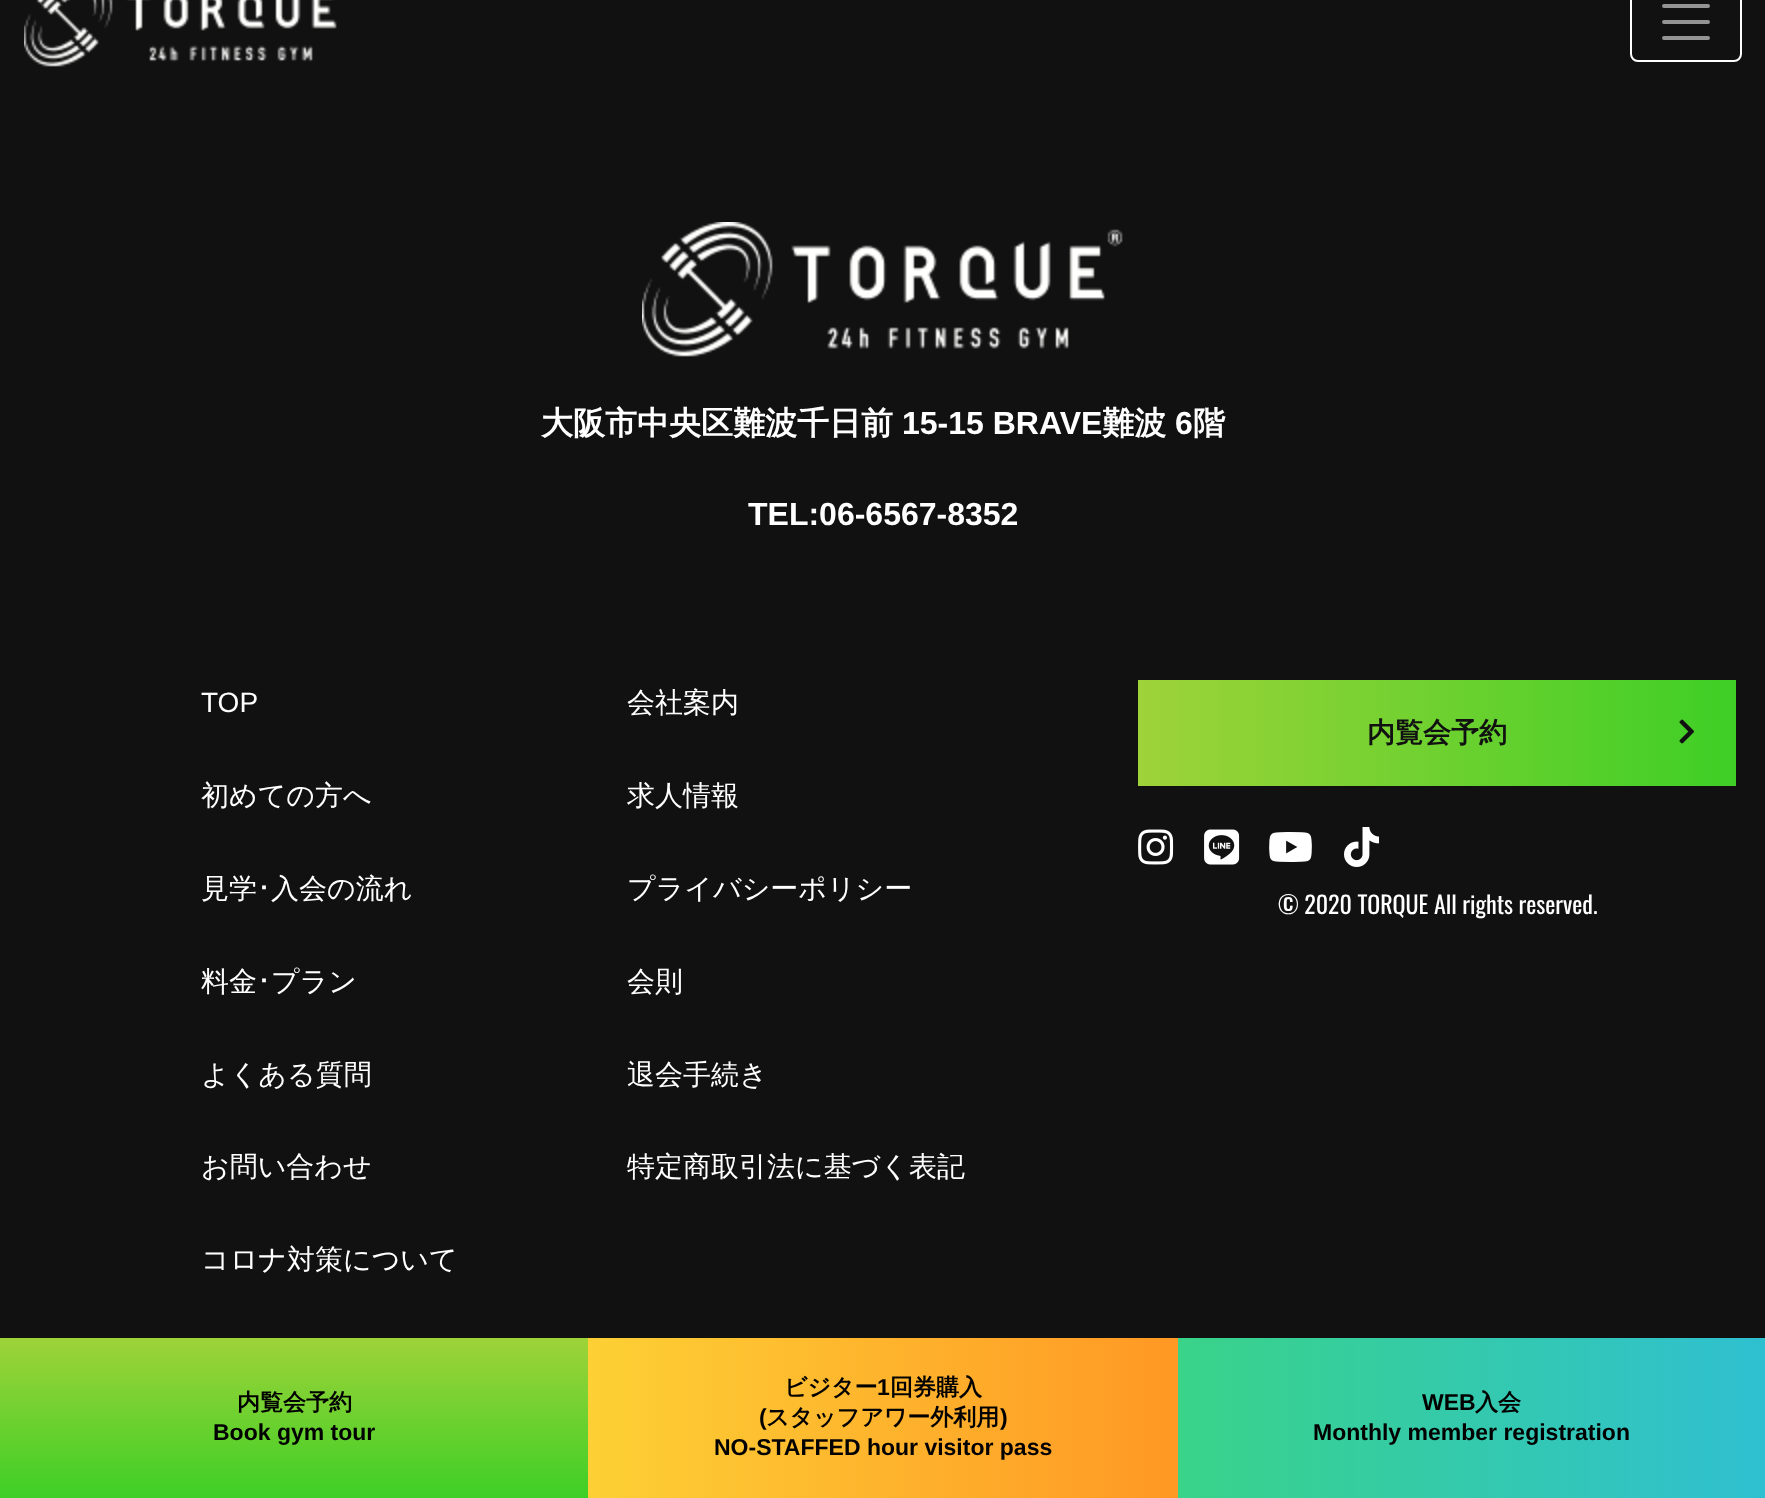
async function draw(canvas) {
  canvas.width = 1765
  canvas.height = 1498
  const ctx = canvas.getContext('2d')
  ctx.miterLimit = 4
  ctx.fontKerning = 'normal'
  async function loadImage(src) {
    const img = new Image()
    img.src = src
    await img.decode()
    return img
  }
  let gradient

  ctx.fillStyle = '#111'
  ctx.fillRect(0, 0, 1765, 1498)
  ctx.drawImage(await loadImage('image0.png'), 24, 0, 313, 67)
  ctx.beginPath()
  ctx.roundRect(1631, -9, 110, 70, 7)
  ctx.strokeStyle = '#fff'
  ctx.lineWidth = 2
  ctx.stroke()
  ctx.beginPath()
  ctx.moveTo(1664, 6)
  ctx.lineTo(1708, 6)
  ctx.moveTo(1664, 22)
  ctx.lineTo(1708, 22)
  ctx.moveTo(1664, 38)
  ctx.lineTo(1708, 38)
  ctx.strokeStyle = '#949494'
  ctx.lineWidth = 4
  ctx.lineCap = 'round'
  ctx.stroke()
  ctx.drawImage(await loadImage('image1.png'), 642, 222, 481, 135)
  ctx.font = 'bold 32px WenQuanYi Zen Hei'
  ctx.fillStyle = '#fff'
  ctx.fillText('大阪市中央区難波千日前', 541, 434)
  ctx.font = 'bold 32px Liberation Sans'
  ctx.fillText('15-15 BRAVE', 902, 434)
  ctx.font = 'bold 32px WenQuanYi Zen Hei'
  ctx.fillText('難波', 1102, 434)
  ctx.font = 'bold 32px Liberation Sans'
  ctx.fillText('6', 1175, 434)
  ctx.font = 'bold 32px WenQuanYi Zen Hei'
  ctx.fillText('階', 1193, 434)
  ctx.font = 'bold 32px Liberation Sans'
  ctx.fillText('TEL:06-6567-8352', 748, 525)
  ctx.font = '28px Liberation Sans'
  ctx.fillText('TOP', 201, 712)
  ctx.font = '500 28px WenQuanYi Zen Hei'
  ctx.fillText('初めての方へ', 201, 805)
  ctx.fillText('見学', 201, 898)
  ctx.font = '28px IPAPGothic'
  ctx.fillText('･', 257, 898)
  ctx.font = '500 28px WenQuanYi Zen Hei'
  ctx.fillText('入会の流れ', 271, 898)
  ctx.fillText('料金', 201, 991)
  ctx.font = '28px IPAPGothic'
  ctx.fillText('･', 257, 991)
  ctx.font = '500 28px WenQuanYi Zen Hei'
  ctx.fillText('プラン', 271, 991)
  ctx.fillText('よくある質問', 201, 1084)
  ctx.fillText('お問い合わせ', 201, 1176)
  ctx.fillText('コロナ対策について', 201, 1269)
  ctx.fillText('会社案内', 627, 712)
  ctx.fillText('求人情報', 627, 805)
  ctx.fillText('プライバシーポリシー', 627, 898)
  ctx.fillText('会則', 627, 991)
  ctx.fillText('退会手続き', 627, 1084)
  ctx.fillText('特定商取引法に基づく表記', 627, 1176)
  gradient = ctx.createLinearGradient(1138, 733, 1736, 733)
  gradient.addColorStop(0, '#9ed339')
  gradient.addColorStop(1, '#3ecf26')
  ctx.fillStyle = gradient
  ctx.fillRect(1138, 680, 598, 106)
  ctx.font = 'bold 28px WenQuanYi Zen Hei'
  ctx.fillStyle = '#111'
  ctx.fillText('内覧会予約', 1367, 742)
  ctx.drawImage(await loadImage('image2.png'), 1679, 719, 15, 25)
  ctx.drawImage(await loadImage('image3.png'), 1138, 829, 36, 36)
  ctx.drawImage(await loadImage('image4.png'), 1204, 829, 36, 36)
  ctx.drawImage(await loadImage('image5.png'), 1269, 832, 43, 30)
  ctx.drawImage(await loadImage('image6.png'), 1344, 827, 35, 40)
  ctx.font = '24px Oswald'
  ctx.fillStyle = '#fff'
  ctx.fillText('© 2020 TORQUE All rights reserved.', 1278, 914)
  gradient = ctx.createLinearGradient(294, 1338, 294, 1498)
  gradient.addColorStop(0, '#9ed339')
  gradient.addColorStop(1, '#3ecf26')
  ctx.fillStyle = gradient
  ctx.fillRect(0, 1338, 588, 160)
  ctx.font = 'bold 23px WenQuanYi Zen Hei'
  ctx.fillStyle = '#000'
  ctx.fillText('内覧会予約', 237, 1410)
  ctx.font = 'bold 23px Liberation Sans'
  ctx.fillText('Book gym tour', 213, 1440)
  gradient = ctx.createLinearGradient(588, 1418, 1178, 1418)
  gradient.addColorStop(0, '#fdd035')
  gradient.addColorStop(1, '#ff9824')
  ctx.fillStyle = gradient
  ctx.fillRect(588, 1338, 590, 160)
  ctx.font = 'bold 23px WenQuanYi Zen Hei'
  ctx.fillStyle = '#000'
  ctx.fillText('ビジター', 784, 1395)
  ctx.font = 'bold 23px Liberation Sans'
  ctx.fillText('1', 877, 1395)
  ctx.font = 'bold 23px WenQuanYi Zen Hei'
  ctx.fillText('回券購入', 890, 1395)
  ctx.font = 'bold 23px Liberation Sans'
  ctx.fillText('(', 759, 1425)
  ctx.font = 'bold 23px WenQuanYi Zen Hei'
  ctx.fillText('スタッフアワー外利用', 766, 1425)
  ctx.font = 'bold 23px Liberation Sans'
  ctx.fillText(')', 1000, 1425)
  ctx.fillText('NO-STAFFED hour visitor pass', 714, 1455)
  gradient = ctx.createLinearGradient(1178, 1418, 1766, 1418)
  gradient.addColorStop(0, '#39d389')
  gradient.addColorStop(1, '#2fc0d1')
  ctx.fillStyle = gradient
  ctx.fillRect(1178, 1338, 587, 160)
  ctx.fillStyle = '#000'
  ctx.fillText('WEB', 1422, 1410)
  ctx.font = 'bold 23px WenQuanYi Zen Hei'
  ctx.fillText('入会', 1475, 1410)
  ctx.font = 'bold 23px Liberation Sans'
  ctx.fillText('Monthly member registration', 1313, 1440)
}

draw(document.querySelector('canvas'))
